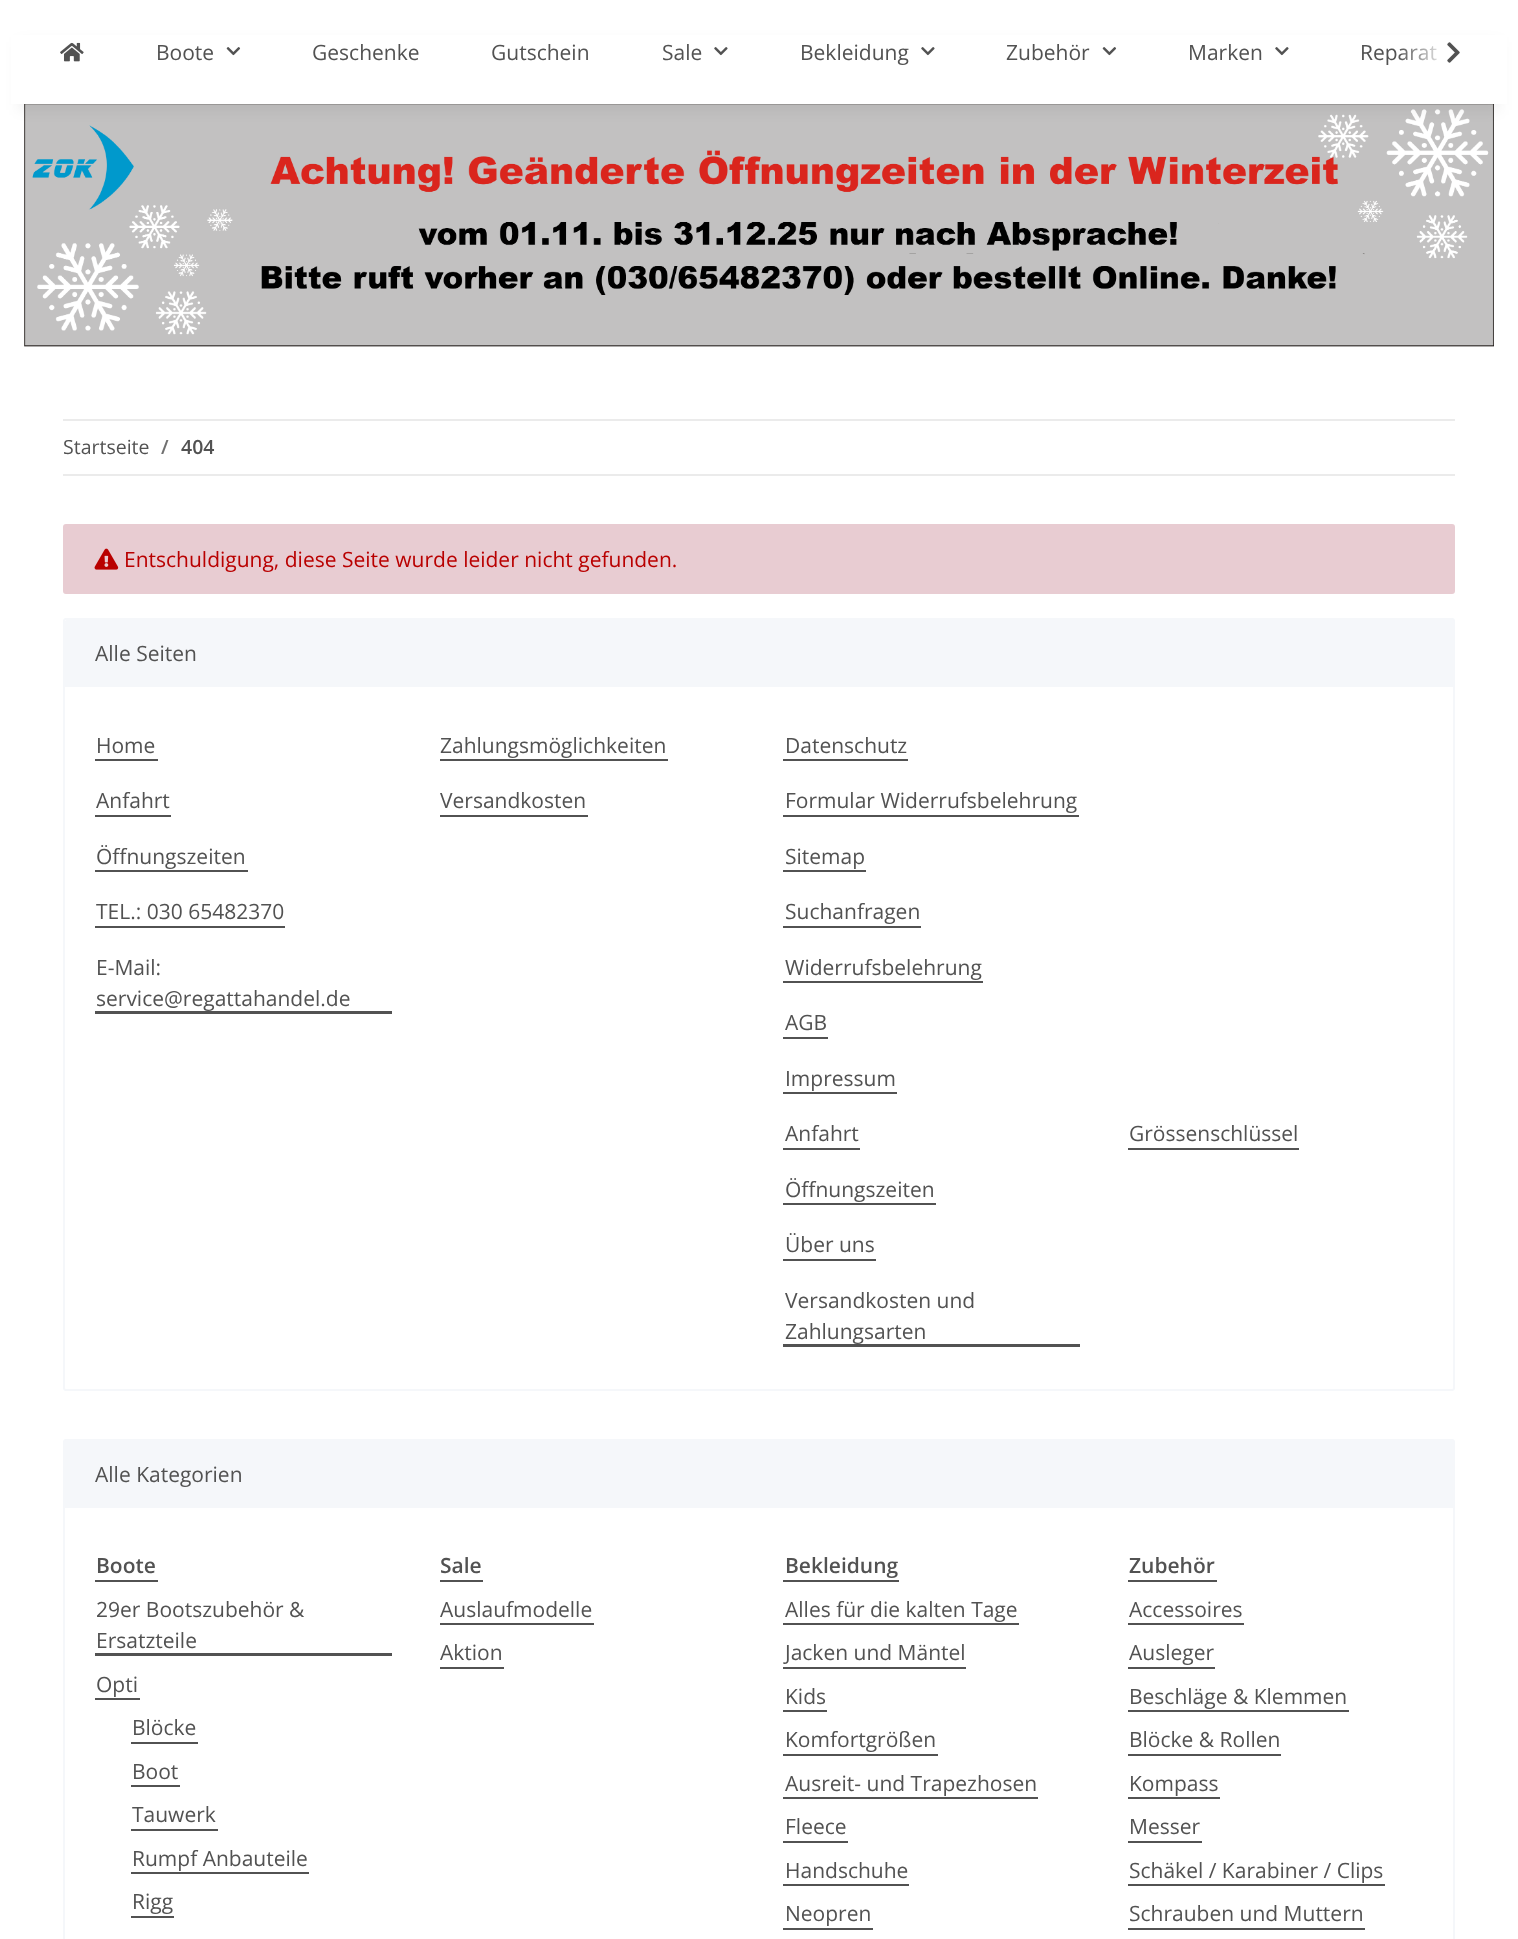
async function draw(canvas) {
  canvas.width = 1518
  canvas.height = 1939
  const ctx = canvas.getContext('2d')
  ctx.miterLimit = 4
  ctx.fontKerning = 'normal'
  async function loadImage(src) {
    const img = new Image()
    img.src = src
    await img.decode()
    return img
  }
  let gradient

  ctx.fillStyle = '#fff'
  ctx.fillRect(0, 0, 1518, 1939)
  ctx.drawImage(await loadImage('image4.png'), 24, 104, 1470, 243)
  ctx.fillStyle = '#0000000f'
  ctx.filter = 'blur(7px)'
  ctx.beginPath()
  ctx.rect(18, 42, 1482, 68)
  ctx.fill()
  ctx.filter = 'none'
  ctx.fillStyle = '#fff'
  ctx.fillRect(11, 35, 1496, 69)
  ctx.font = '21px Open Sans'
  ctx.fillStyle = '#525252'
  ctx.fillText('Reparat', 1360, 60)
  gradient = ctx.createLinearGradient(1398, 53, 1470, 53)
  gradient.addColorStop(0, '#ffffff03')
  gradient.addColorStop(0.7, '#fff')
  ctx.fillStyle = gradient
  ctx.fillRect(1399, 46, 38, 15)
  ctx.drawImage(await loadImage('image0.png'), 1447, 42, 13, 21)
  ctx.drawImage(await loadImage('image1.png'), 60, 42, 24, 20)
  ctx.fillStyle = '#525252'
  ctx.fillText('Boote', 156, 60)
  ctx.drawImage(await loadImage('image2.png'), 226, 47, 15, 9)
  ctx.fillText('Geschenke', 312, 60)
  ctx.fillText('Gutschein', 491, 60)
  ctx.fillText('Sale', 662, 60)
  ctx.drawImage(await loadImage('image3.png'), 714, 47, 14, 9)
  ctx.fillText('Bekleidung', 800, 60)
  ctx.drawImage(await loadImage('image3.png'), 921, 47, 14, 9)
  ctx.fillText('Zubehör', 1006, 60)
  ctx.drawImage(await loadImage('image2.png'), 1102, 47, 15, 9)
  ctx.fillText('Marken', 1188, 60)
  ctx.drawImage(await loadImage('image3.png'), 1275, 47, 14, 9)
  ctx.fillStyle = '#ebebeb'
  ctx.fillRect(63, 419, 1392, 2)
  ctx.fillRect(63, 474, 1392, 2)
  ctx.font = '19.5px Open Sans'
  ctx.fillStyle = '#525252'
  ctx.fillText('Startseite', 63, 454)
  ctx.font = '600 19.5px Open Sans'
  ctx.fillStyle = '#707070'
  ctx.fillText('/', 161, 454)
  ctx.fillStyle = '#525252'
  ctx.fillText('404', 181, 454)
  ctx.fillStyle = '#e8ccd2'
  ctx.beginPath()
  ctx.roundRect(64, 525, 1390, 68, 2)
  ctx.fill()
  ctx.strokeStyle = '#e8ccd2'
  ctx.lineWidth = 2
  ctx.stroke()
  ctx.drawImage(await loadImage('image5.png'), 94, 548, 25, 22)
  ctx.font = '21px Open Sans'
  ctx.fillStyle = '#b90000'
  ctx.fillText('Entschuldigung, diese Seite wurde leider nicht gefunden.', 124, 567)
  ctx.beginPath()
  ctx.roundRect(64, 619, 1390, 771, 2)
  ctx.strokeStyle = '#f5f7fa'
  ctx.stroke()
  ctx.fillStyle = '#f5f7fa'
  ctx.beginPath()
  ctx.roundRect(65, 620, 1389, 67, [1.5, 1.5, 0, 0])
  ctx.fill()
  ctx.fillStyle = '#525252'
  ctx.fillText('Alle Seiten', 95, 661)
  ctx.fillText('Home', 96, 753)
  ctx.fillRect(95, 759, 63, 2)
  ctx.fillText('Anfahrt', 96, 808)
  ctx.fillRect(95, 815, 76, 2)
  ctx.fillText('Öffnungszeiten', 96, 864)
  ctx.fillRect(95, 870, 153, 2)
  ctx.fillText('TEL.: 030 65482370', 96, 919)
  ctx.fillRect(95, 926, 190, 2)
  ctx.fillText('E-Mail:', 96, 975)
  ctx.fillText('service@regattahandel.de', 96, 1006)
  ctx.fillRect(95, 1011, 297, 3)
  ctx.fillText('Zahlungsmöglichkeiten', 440, 753)
  ctx.fillRect(440, 759, 228, 2)
  ctx.fillText('Versandkosten', 440, 808)
  ctx.fillRect(440, 815, 148, 2)
  ctx.fillText('Datenschutz', 785, 753)
  ctx.fillRect(783, 759, 125, 2)
  ctx.fillText('Formular Widerrufsbelehrung', 785, 808)
  ctx.fillRect(783, 815, 296, 2)
  ctx.fillText('Sitemap', 785, 864)
  ctx.fillRect(783, 870, 83, 2)
  ctx.fillText('Suchanfragen', 785, 919)
  ctx.fillRect(783, 926, 138, 2)
  ctx.fillText('Widerrufsbelehrung', 785, 975)
  ctx.fillRect(783, 981, 200, 2)
  ctx.fillText('AGB', 785, 1030)
  ctx.fillRect(783, 1037, 45, 2)
  ctx.fillText('Impressum', 785, 1086)
  ctx.fillRect(783, 1092, 114, 2)
  ctx.fillText('Anfahrt', 785, 1141)
  ctx.fillRect(783, 1148, 77, 2)
  ctx.fillText('Öffnungszeiten', 785, 1197)
  ctx.fillRect(783, 1203, 153, 2)
  ctx.fillText('Über uns', 785, 1252)
  ctx.fillRect(783, 1259, 93, 2)
  ctx.fillText('Versandkosten und', 785, 1308)
  ctx.fillText('Zahlungsarten', 785, 1339)
  ctx.fillRect(783, 1344, 297, 3)
  ctx.fillText('Grössenschlüssel', 1129, 1141)
  ctx.fillRect(1128, 1148, 171, 2)
  ctx.beginPath()
  ctx.roundRect(64, 1440, 1390, 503, 2)
  ctx.stroke()
  ctx.fillStyle = '#f5f7fa'
  ctx.beginPath()
  ctx.roundRect(65, 1440, 1389, 68, [1.5, 1.5, 0, 0])
  ctx.fill()
  ctx.fillStyle = '#525252'
  ctx.fillText('Alle Kategorien', 95, 1482)
  ctx.font = '600 21px Open Sans'
  ctx.fillText('Boote', 96, 1573)
  ctx.fillRect(95, 1580, 63, 2)
  ctx.font = '21px Open Sans'
  ctx.fillText('29er Bootszubehör &', 96, 1617)
  ctx.fillText('Ersatzteile', 96, 1648)
  ctx.fillRect(95, 1653, 297, 3)
  ctx.fillText('Opti', 96, 1692)
  ctx.fillRect(95, 1698, 45, 2)
  ctx.fillText('Blöcke', 132, 1735)
  ctx.fillRect(131, 1742, 67, 2)
  ctx.fillText('Boot', 132, 1779)
  ctx.fillRect(131, 1785, 49, 2)
  ctx.fillText('Tauwerk', 132, 1822)
  ctx.fillRect(131, 1829, 87, 2)
  ctx.fillText('Rumpf Anbauteile', 132, 1866)
  ctx.fillRect(131, 1872, 178, 2)
  ctx.fillText('Rigg', 132, 1909)
  ctx.fillRect(131, 1916, 43, 2)
  ctx.font = '600 21px Open Sans'
  ctx.fillText('Sale', 440, 1573)
  ctx.fillRect(440, 1580, 43, 2)
  ctx.font = '21px Open Sans'
  ctx.fillText('Auslaufmodelle', 440, 1617)
  ctx.fillRect(440, 1623, 154, 2)
  ctx.fillText('Aktion', 440, 1660)
  ctx.fillRect(440, 1667, 64, 2)
  ctx.font = '600 21px Open Sans'
  ctx.fillText('Bekleidung', 785, 1573)
  ctx.fillRect(783, 1580, 116, 2)
  ctx.font = '21px Open Sans'
  ctx.fillText('Alles für die kalten Tage', 785, 1617)
  ctx.fillRect(783, 1623, 236, 2)
  ctx.fillText('Jacken und Mäntel', 785, 1660)
  ctx.fillRect(783, 1667, 183, 2)
  ctx.fillText('Kids', 785, 1704)
  ctx.fillRect(783, 1710, 44, 2)
  ctx.fillText('Komfortgrößen', 785, 1747)
  ctx.fillRect(783, 1754, 155, 2)
  ctx.fillText('Ausreit- und Trapezhosen', 785, 1791)
  ctx.fillRect(783, 1797, 255, 2)
  ctx.fillText('Fleece', 785, 1834)
  ctx.fillRect(783, 1841, 65, 2)
  ctx.fillText('Handschuhe', 785, 1878)
  ctx.fillRect(783, 1884, 126, 2)
  ctx.fillText('Neopren', 785, 1921)
  ctx.fillRect(783, 1928, 90, 2)
  ctx.font = '600 21px Open Sans'
  ctx.fillText('Zubehör', 1129, 1573)
  ctx.fillRect(1128, 1580, 89, 2)
  ctx.font = '21px Open Sans'
  ctx.fillText('Accessoires', 1129, 1617)
  ctx.fillRect(1128, 1623, 116, 2)
  ctx.fillText('Ausleger', 1129, 1660)
  ctx.fillRect(1128, 1667, 87, 2)
  ctx.fillText('Beschläge & Klemmen', 1129, 1704)
  ctx.fillRect(1128, 1710, 221, 2)
  ctx.fillText('Blöcke & Rollen', 1129, 1747)
  ctx.fillRect(1128, 1754, 153, 2)
  ctx.fillText('Kompass', 1129, 1791)
  ctx.fillRect(1128, 1797, 92, 2)
  ctx.fillText('Messer', 1129, 1834)
  ctx.fillRect(1128, 1841, 74, 2)
  ctx.fillText('Schäkel / Karabiner / Clips', 1129, 1878)
  ctx.fillRect(1128, 1884, 257, 2)
  ctx.fillText('Schrauben und Muttern', 1129, 1921)
  ctx.fillRect(1128, 1928, 237, 2)
}

draw(document.querySelector('canvas'))
